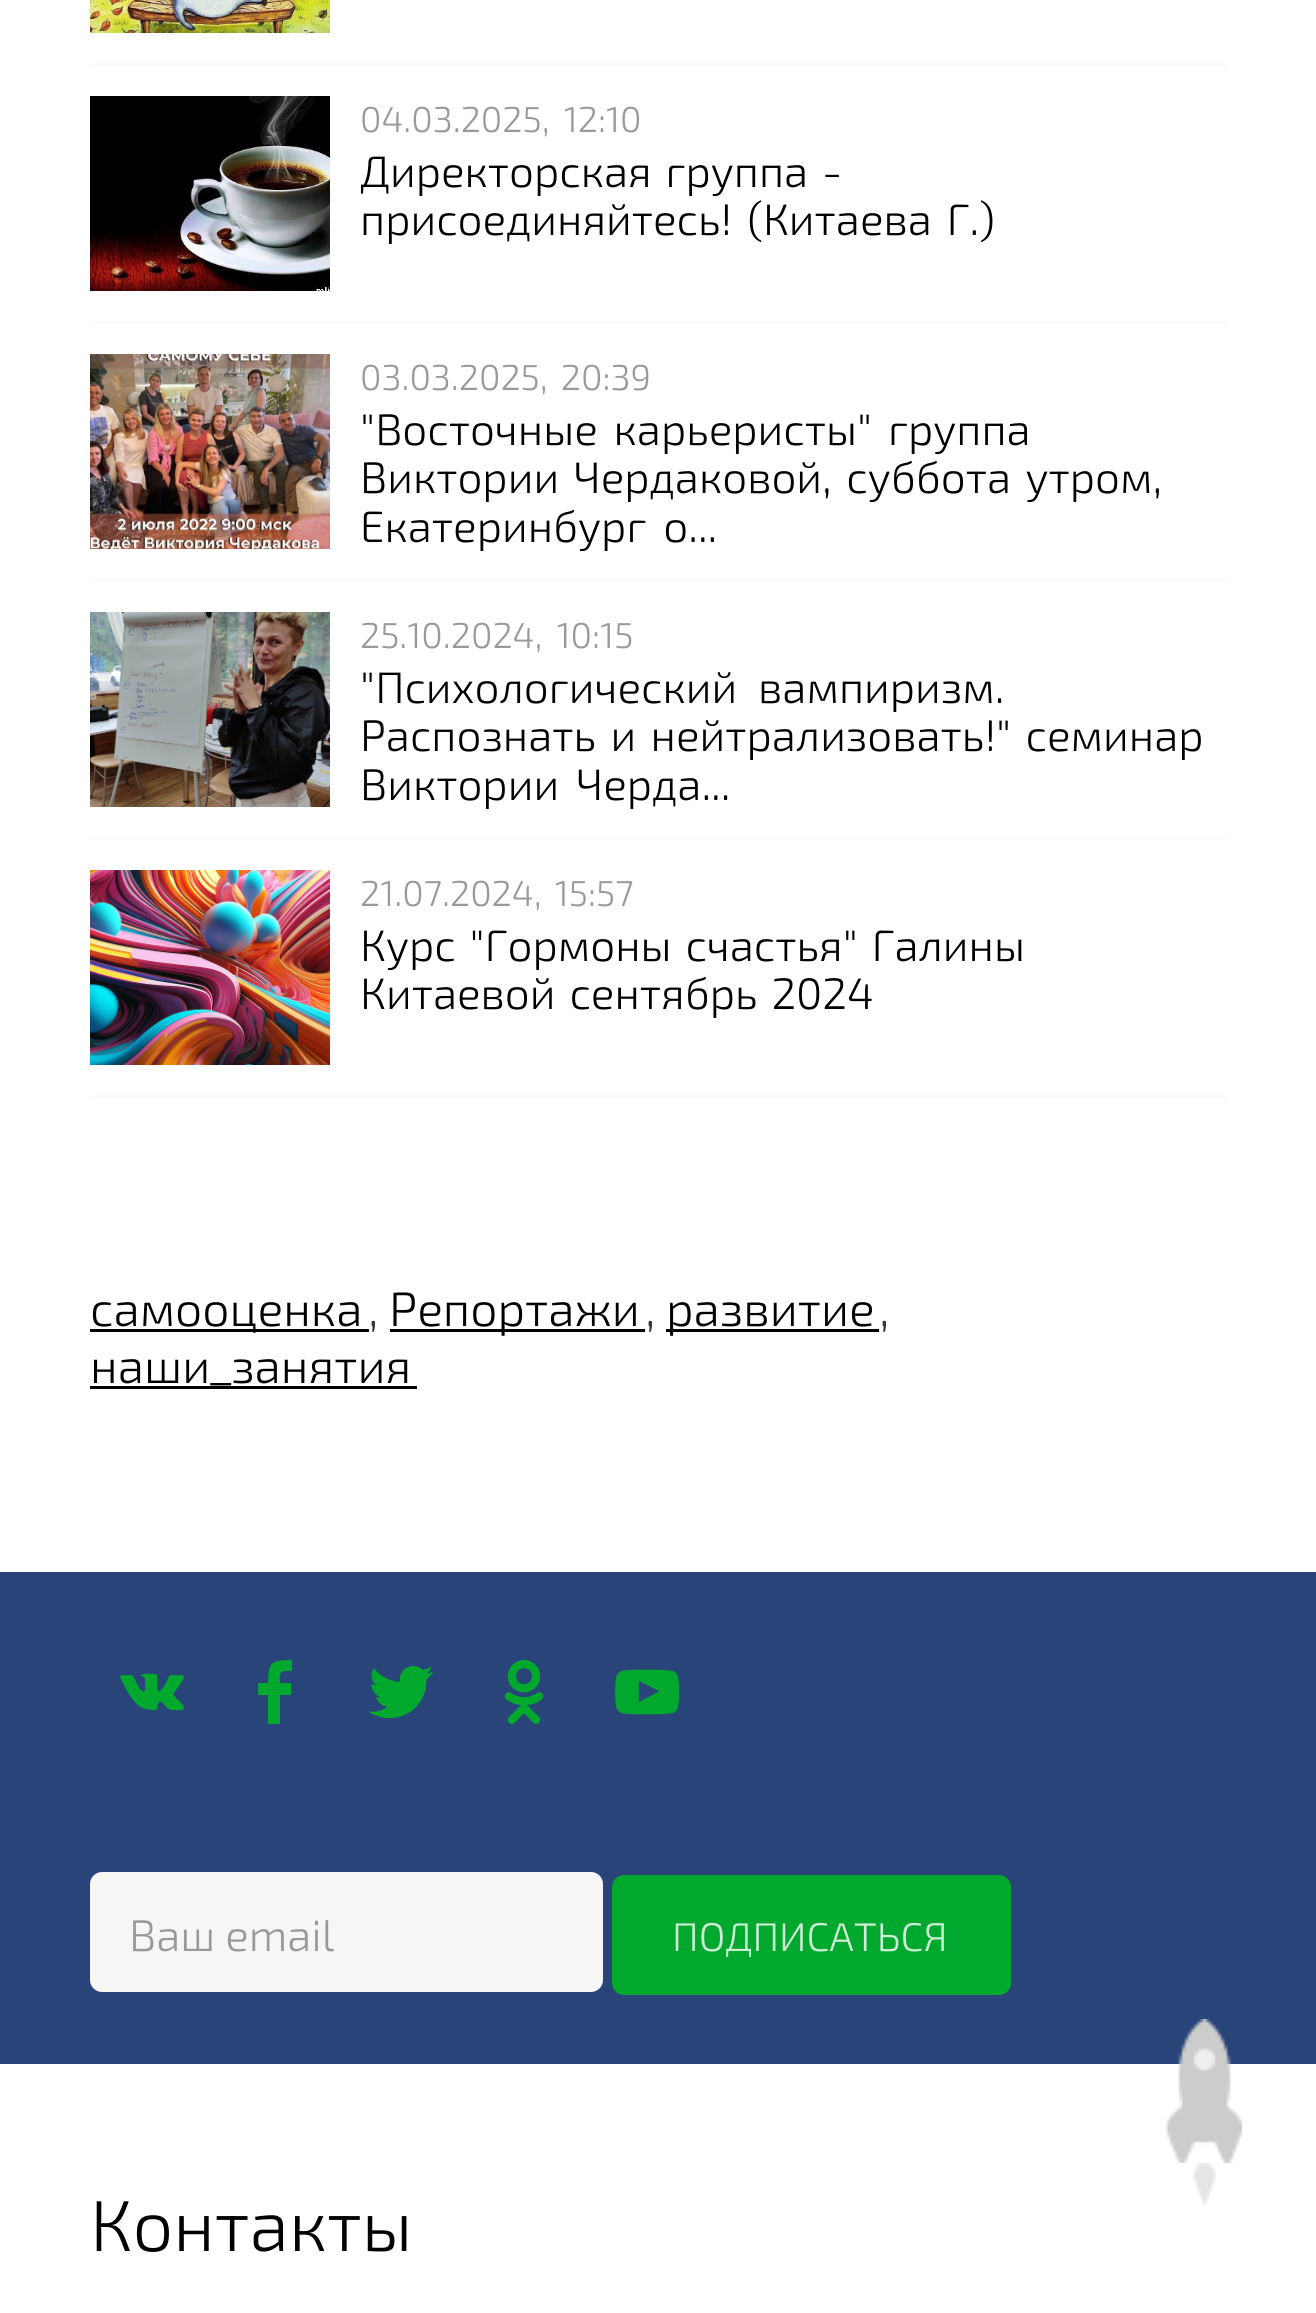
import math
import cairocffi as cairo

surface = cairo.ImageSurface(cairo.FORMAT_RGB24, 1316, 2313)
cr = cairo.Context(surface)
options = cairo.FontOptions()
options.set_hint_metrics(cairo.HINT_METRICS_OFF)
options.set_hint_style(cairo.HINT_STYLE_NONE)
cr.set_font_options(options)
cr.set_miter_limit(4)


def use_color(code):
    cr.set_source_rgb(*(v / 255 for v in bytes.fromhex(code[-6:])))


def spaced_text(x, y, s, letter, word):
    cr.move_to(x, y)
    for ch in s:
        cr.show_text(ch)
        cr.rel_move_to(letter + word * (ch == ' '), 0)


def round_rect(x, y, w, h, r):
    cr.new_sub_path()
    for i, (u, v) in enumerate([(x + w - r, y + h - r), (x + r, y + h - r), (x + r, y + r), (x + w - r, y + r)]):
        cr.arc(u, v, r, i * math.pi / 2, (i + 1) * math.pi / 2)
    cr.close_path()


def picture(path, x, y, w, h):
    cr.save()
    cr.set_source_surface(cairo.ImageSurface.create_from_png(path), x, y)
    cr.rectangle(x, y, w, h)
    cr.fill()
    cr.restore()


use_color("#ffffff")
cr.paint()
use_color("#fafafa")
cr.rectangle(90, 63, 1137, 3)
cr.fill()
picture("img1.png", 90, 0, 240, 33)
cr.rectangle(90, 321, 1137, 3)
cr.fill()
picture("img2.png", 90, 96, 240, 195)
cr.select_font_face("Exo 2 Light")
cr.set_font_size(36)
use_color("#999999")
spaced_text(360, 132, "04.03.2025, 12:10", 0, 6)
cr.set_font_size(44)
use_color("#000000")
spaced_text(360, 187, "Директорская группа -", 0, 4)
spaced_text(360, 235, "присоединяйтесь! (Китаева Г.)", 0, 5)
use_color("#fafafa")
cr.rectangle(90, 579, 1137, 3)
cr.fill()
picture("img3.png", 90, 354, 240, 195)
cr.set_font_size(36)
use_color("#999999")
spaced_text(360, 390, "03.03.2025, 20:39", 0, 5)
cr.set_font_size(44)
use_color("#000000")
spaced_text(360, 445, "\"Восточные карьеристы\" группа", 0, 6)
spaced_text(360, 493, "Виктории Чердаковой, суббота утром,", 0, 4.5)
spaced_text(360, 542, "Екатеринбург о...", 0, 7)
use_color("#fafafa")
cr.rectangle(90, 837, 1137, 3)
cr.fill()
picture("img4.png", 90, 612, 240, 195)
cr.set_font_size(36)
use_color("#999999")
spaced_text(360, 648, "25.10.2024, 10:15", 0, 6)
cr.set_font_size(44)
use_color("#000000")
spaced_text(360, 703, "\"Психологический вампиризм.", 0, 11)
spaced_text(360, 751, "Распознать и нейтрализовать!\" семинар", 0, 4.5)
spaced_text(360, 800, "Виктории Черда...", 0, 7)
use_color("#fafafa")
cr.rectangle(90, 1095, 1137, 3)
cr.fill()
picture("img5.png", 90, 870, 240, 195)
cr.set_font_size(36)
use_color("#999999")
spaced_text(360, 906, "21.07.2024, 15:57", 0, 5)
cr.set_font_size(44)
use_color("#000000")
spaced_text(360, 961, "Курс \"Гормоны счастья\" Галины", 0, 4)
spaced_text(360, 1009, "Китаевой сентябрь 2024", 0, 4)
cr.rectangle(90, 1329, 279, 3)
cr.fill()
cr.set_font_size(48)
cr.move_to(90, 1326)
cr.show_text("самооценка")
use_color("#333333")
cr.move_to(368, 1326)
cr.show_text(",")
use_color("#000000")
cr.rectangle(390, 1329, 255, 3)
cr.fill()
cr.move_to(389, 1326)
cr.show_text("Репортажи")
use_color("#333333")
cr.move_to(645, 1326)
cr.show_text(",")
use_color("#000000")
cr.rectangle(666, 1329, 213, 3)
cr.fill()
cr.move_to(666, 1326)
cr.show_text("развитие")
use_color("#333333")
cr.move_to(879, 1326)
cr.show_text(",")
use_color("#000000")
cr.move_to(90, 1383)
cr.show_text("наши_занятия")
cr.rectangle(90, 1386, 327, 3)
cr.fill()
use_color("#294479")
cr.rectangle(0, 1572, 1316, 492)
cr.fill()
picture("img6.png", 120, 1673, 64, 38)
use_color("#00a82d")
cr.new_path()
cr.move_to(292, 1671)
cr.curve_to(279, 1671, 280, 1671, 280, 1683)
cr.line_to(291, 1683)
cr.line_to(291, 1695)
cr.line_to(280, 1695)
cr.line_to(280, 1724)
cr.line_to(268, 1724)
cr.line_to(268, 1695)
cr.line_to(258, 1695)
cr.line_to(258, 1683)
cr.line_to(268, 1683)
cr.curve_to(268, 1662, 271, 1660, 292, 1660)
cr.close_path()
cr.fill()
picture("img7.png", 369, 1665, 64, 54)
picture("img8.png", 504, 1660, 40, 64)
picture("img9.png", 615, 1669, 65, 46)
use_color("#f6f6f6")
round_rect(91.5, 1873.5, 510, 117, 10.5)
cr.fill_preserve()
cr.set_line_width(3)
cr.stroke()
cr.set_font_size(44)
use_color("#999999")
cr.move_to(129, 1951)
cr.show_text("Ваш email")
use_color("#00a82d")
round_rect(612, 1875, 399, 120, 12)
cr.fill()
cr.set_font_size(40)
use_color("#cceed5")
cr.move_to(672, 1951)
cr.show_text("ПОДПИСАТЬСЯ")
cr.set_font_size(72)
use_color("#000000")
cr.move_to(90, 2251)
cr.show_text("Контакты")
picture("img10.png", 1166, 2019, 76, 144)
picture("img11.png", 1193, 2163, 23, 42)
surface.write_to_png("result.png")
